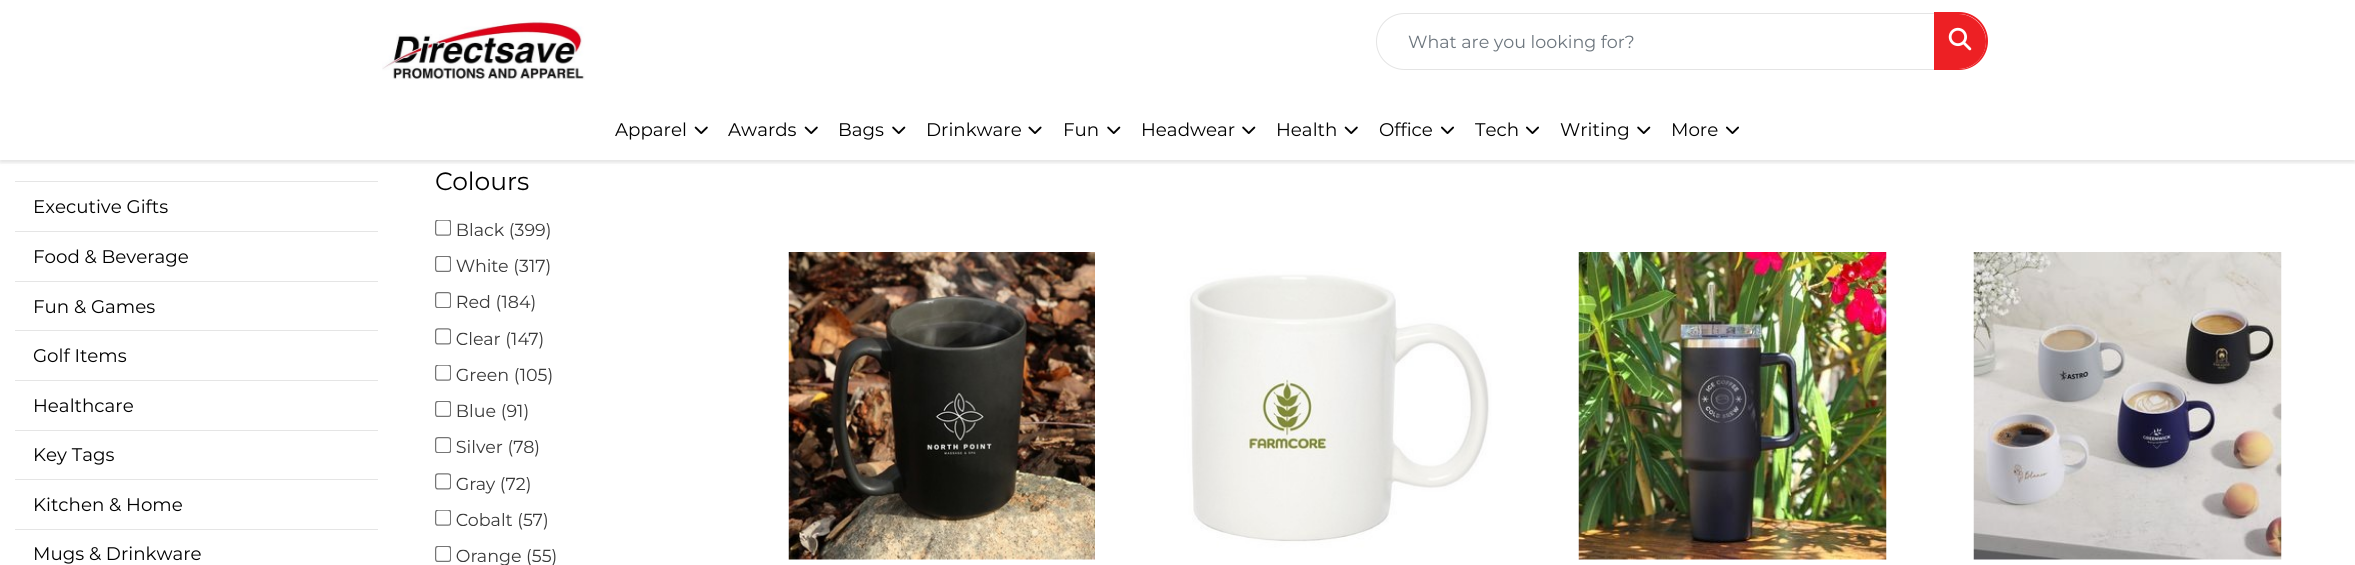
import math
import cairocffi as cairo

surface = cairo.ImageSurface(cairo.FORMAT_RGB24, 2355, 565)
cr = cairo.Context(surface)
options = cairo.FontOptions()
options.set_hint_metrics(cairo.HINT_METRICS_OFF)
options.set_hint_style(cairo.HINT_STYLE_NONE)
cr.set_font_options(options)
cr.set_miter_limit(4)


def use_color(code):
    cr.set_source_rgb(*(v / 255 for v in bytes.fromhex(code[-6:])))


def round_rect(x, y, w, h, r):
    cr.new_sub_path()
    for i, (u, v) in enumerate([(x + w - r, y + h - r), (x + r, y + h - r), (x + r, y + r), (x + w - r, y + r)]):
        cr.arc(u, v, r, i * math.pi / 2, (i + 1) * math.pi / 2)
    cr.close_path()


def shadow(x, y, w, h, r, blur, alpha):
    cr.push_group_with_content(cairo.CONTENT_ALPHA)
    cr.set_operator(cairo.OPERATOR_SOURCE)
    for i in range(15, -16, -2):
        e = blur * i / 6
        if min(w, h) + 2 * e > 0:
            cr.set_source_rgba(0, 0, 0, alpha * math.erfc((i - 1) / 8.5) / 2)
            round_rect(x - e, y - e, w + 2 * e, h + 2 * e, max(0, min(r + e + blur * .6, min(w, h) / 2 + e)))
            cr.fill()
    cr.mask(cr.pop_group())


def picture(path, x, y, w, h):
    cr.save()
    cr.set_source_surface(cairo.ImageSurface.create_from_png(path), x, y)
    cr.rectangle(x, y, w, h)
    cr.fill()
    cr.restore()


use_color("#ffffff")
cr.paint()
picture("img7.png", 435, 160, 1847, 405)
use_color("#000000")
shadow(0, 0, 2355, 160, 0, 3, 0.1)
use_color("#ffffff")
cr.rectangle(0, 0, 2355, 160)
cr.fill()
picture("img1.png", 382, 20, 203, 60)
cr.new_path()
cr.move_to(1404.5, 13.5)
cr.line_to(1934.5, 13.5)
cr.line_to(1934.5, 69.5)
cr.line_to(1404.5, 69.5)
cr.curve_to(1389, 69.5, 1376.5, 57, 1376.5, 41.5)
cr.curve_to(1376.5, 26, 1389, 13.5, 1404.5, 13.5)
cr.close_path()
use_color("#e4e4e4")
cr.set_line_width(1)
cr.stroke()
cr.select_font_face("Montserrat Thin")
cr.set_font_size(17.5)
use_color("#6c757d")
cr.move_to(1408, 48)
cr.show_text("What are you looking for?")
use_color("#ed2024")
cr.new_path()
cr.move_to(1934, 14)
cr.line_to(1958.5, 14)
cr.curve_to(1973.5, 14, 1986, 26.5, 1986, 41.5)
cr.curve_to(1986, 56.5, 1973.5, 69, 1958.5, 69)
cr.line_to(1934, 69)
cr.close_path()
cr.fill()
cr.set_fill_rule(cairo.FILL_RULE_EVEN_ODD)
cr.new_path()
cr.move_to(1934, 12)
cr.line_to(1959, 12)
cr.curve_to(1975, 12, 1988, 25, 1988, 41)
cr.curve_to(1988, 57, 1975, 70, 1959, 70)
cr.line_to(1934, 70)
cr.close_path()
cr.move_to(1934, 14)
cr.line_to(1959, 14)
cr.curve_to(1974, 14, 1986, 26, 1986, 41)
cr.curve_to(1986, 56, 1974, 69, 1959, 69)
cr.line_to(1934, 69)
cr.close_path()
cr.fill()
picture("img2.png", 1948, 27, 24, 24)
cr.save()
cr.set_fill_rule(cairo.FILL_RULE_WINDING)
cr.rectangle(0, 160, 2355, 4)
cr.clip()
use_color("#000000")
shadow(0, 103, 2355, 60, 0, 2.5, 0.07)
cr.restore()
cr.set_font_size(18.25)
use_color("#000000")
cr.move_to(615, 136)
cr.show_text("Apparel")
picture("img3.png", 694, 126, 14, 8)
cr.move_to(728, 136)
cr.show_text("Awards")
picture("img3.png", 804, 126, 14, 8)
cr.move_to(838, 136)
cr.show_text("Bags")
picture("img4.png", 892, 126, 14, 8)
cr.move_to(926, 136)
cr.show_text("Drinkware")
picture("img5.png", 1028, 126, 14, 8)
cr.move_to(1063, 136)
cr.show_text("Fun")
picture("img4.png", 1107, 126, 14, 8)
cr.move_to(1141, 136)
cr.show_text("Headwear")
picture("img4.png", 1242, 126, 14, 8)
cr.move_to(1276, 136)
cr.show_text("Health")
picture("img3.png", 1344, 126, 14, 8)
cr.move_to(1379, 136)
cr.show_text("Office")
picture("img6.png", 1441, 126, 13, 8)
cr.move_to(1475, 136)
cr.show_text("Tech")
picture("img6.png", 1526, 126, 13, 8)
cr.move_to(1560, 136)
cr.show_text("Writing")
picture("img4.png", 1637, 126, 14, 8)
cr.move_to(1671, 136)
cr.show_text("More")
picture("img6.png", 1726, 126, 13, 8)
use_color("#e5e5e5")
cr.rectangle(15, 181, 363, 1)
cr.fill()
use_color("#000000")
cr.move_to(33, 213)
cr.show_text("Executive Gifts")
use_color("#e5e5e5")
cr.rectangle(15, 231, 363, 1)
cr.fill()
use_color("#000000")
cr.move_to(33, 263)
cr.show_text("Food & Beverage")
use_color("#e5e5e5")
cr.rectangle(15, 281, 363, 1)
cr.fill()
use_color("#000000")
cr.move_to(33, 313)
cr.show_text("Fun & Games")
use_color("#e5e5e5")
cr.rectangle(15, 330, 363, 1)
cr.fill()
use_color("#000000")
cr.move_to(33, 362)
cr.show_text("Golf Items")
use_color("#e5e5e5")
cr.rectangle(15, 380, 363, 1)
cr.fill()
use_color("#000000")
cr.move_to(33, 412)
cr.show_text("Healthcare")
use_color("#e5e5e5")
cr.rectangle(15, 430, 363, 1)
cr.fill()
use_color("#000000")
cr.move_to(33, 461)
cr.show_text("Key Tags")
use_color("#e5e5e5")
cr.rectangle(15, 479, 363, 1)
cr.fill()
use_color("#000000")
cr.move_to(33, 511)
cr.show_text("Kitchen & Home")
use_color("#e5e5e5")
cr.rectangle(15, 529, 363, 1)
cr.fill()
use_color("#000000")
cr.move_to(33, 560)
cr.show_text("Mugs & Drinkware")
surface.write_to_png("result.png")
